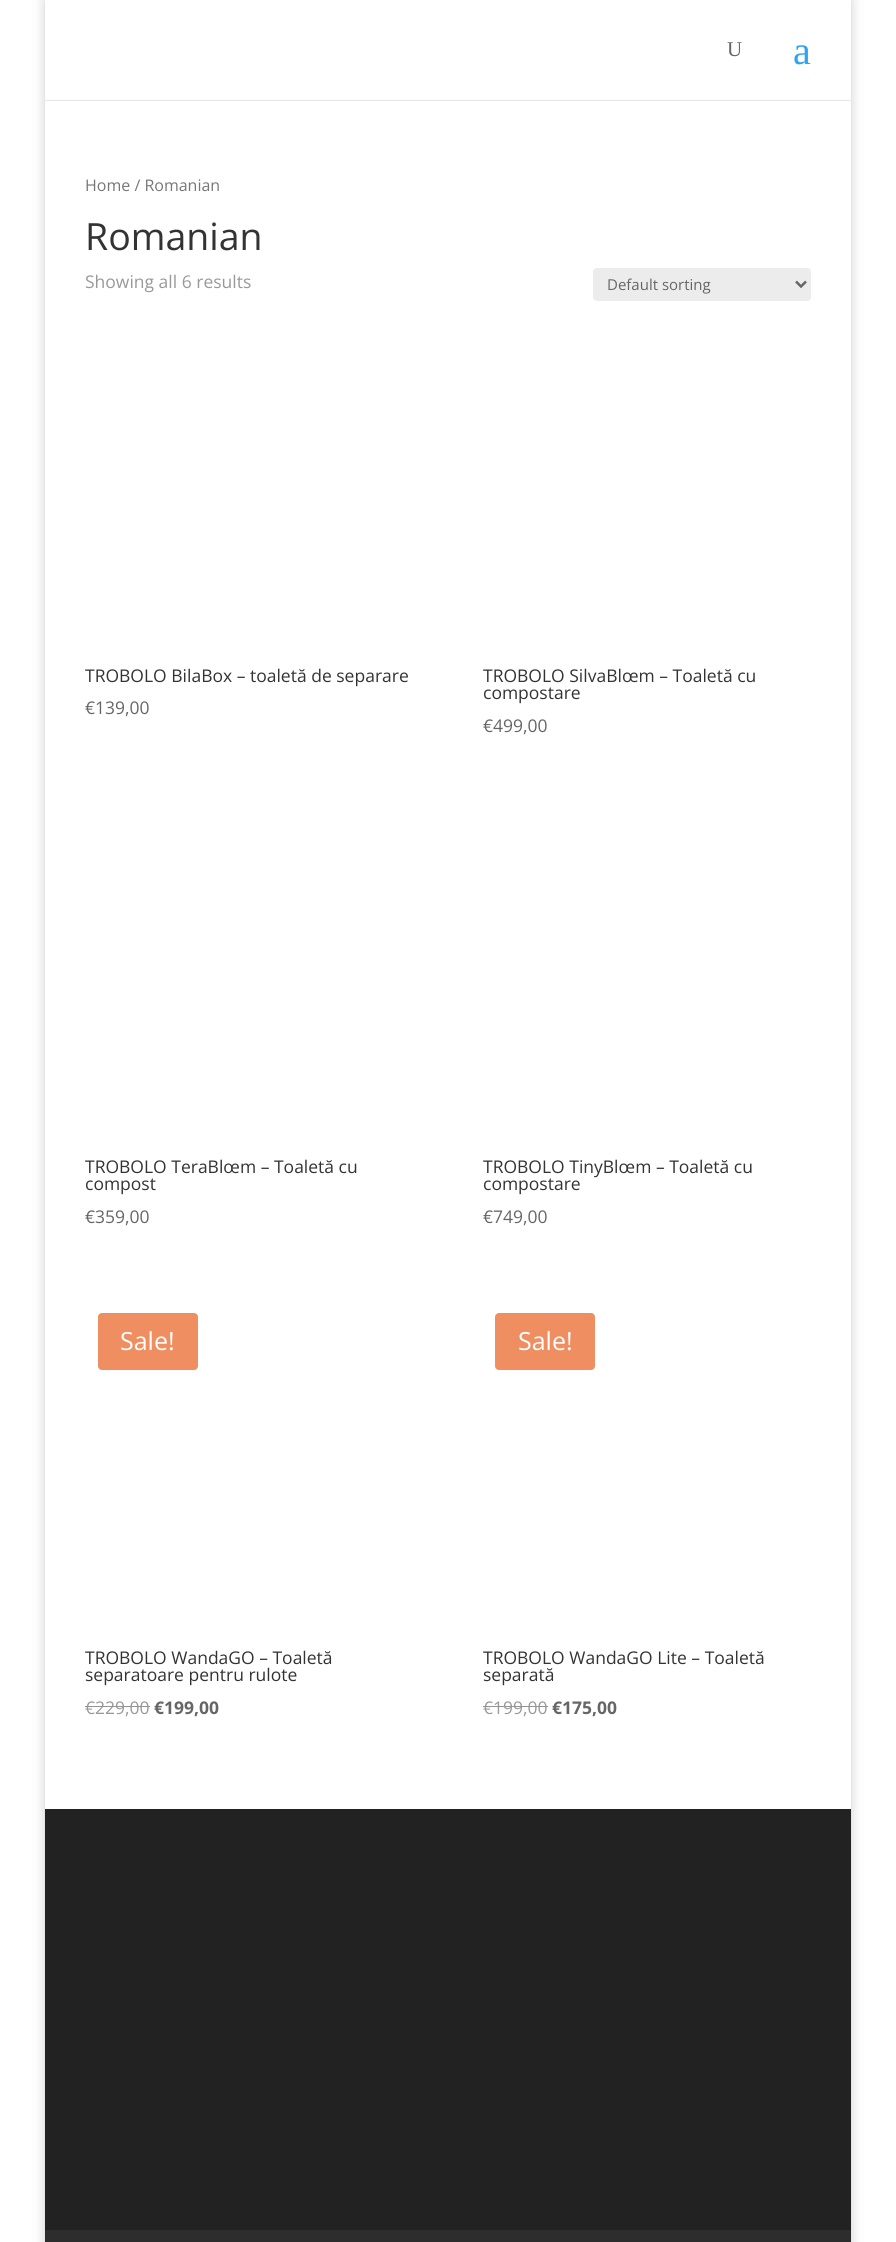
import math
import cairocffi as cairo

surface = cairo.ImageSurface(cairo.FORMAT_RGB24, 896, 2242)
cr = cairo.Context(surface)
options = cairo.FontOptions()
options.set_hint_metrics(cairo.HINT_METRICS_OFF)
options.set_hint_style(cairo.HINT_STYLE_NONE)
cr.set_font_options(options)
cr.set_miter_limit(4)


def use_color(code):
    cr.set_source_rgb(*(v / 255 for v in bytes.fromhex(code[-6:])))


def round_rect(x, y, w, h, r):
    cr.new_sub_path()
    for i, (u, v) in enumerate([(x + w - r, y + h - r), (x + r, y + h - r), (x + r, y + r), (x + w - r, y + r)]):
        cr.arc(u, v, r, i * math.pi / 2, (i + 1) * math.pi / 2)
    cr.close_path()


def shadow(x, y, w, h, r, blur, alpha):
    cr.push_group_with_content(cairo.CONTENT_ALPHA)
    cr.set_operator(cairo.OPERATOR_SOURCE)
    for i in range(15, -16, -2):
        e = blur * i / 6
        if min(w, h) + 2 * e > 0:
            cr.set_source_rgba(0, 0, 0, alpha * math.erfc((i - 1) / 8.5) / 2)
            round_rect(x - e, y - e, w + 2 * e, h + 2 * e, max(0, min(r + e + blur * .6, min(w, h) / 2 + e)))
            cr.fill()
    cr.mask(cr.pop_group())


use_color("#ffffff")
cr.paint()
cr.save()
cr.set_fill_rule(cairo.FILL_RULE_EVEN_ODD)
cr.new_path()
cr.move_to(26, 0)
cr.line_to(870, 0)
cr.line_to(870, 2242)
cr.line_to(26, 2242)
cr.close_path()
cr.move_to(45, 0)
cr.line_to(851, 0)
cr.line_to(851, 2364)
cr.line_to(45, 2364)
cr.close_path()
cr.clip()
use_color("#000000")
shadow(45, 0, 806, 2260, 0, 6, 0.2)
cr.restore()
use_color("#e6e6e6")
cr.rectangle(45, 100, 806, 1)
cr.fill()
cr.select_font_face("Liberation Serif")
cr.set_font_size(21)
use_color("#666666")
cr.move_to(727, 56)
cr.show_text("U")
cr.set_font_size(40)
use_color("#2ea3f2")
cr.move_to(793, 64)
cr.show_text("a")
cr.select_font_face("Open Sans")
cr.set_font_size(16)
use_color("#767676")
cr.move_to(85, 191)
cr.show_text("Home / Romanian")
cr.set_font_size(37.5)
use_color("#333333")
cr.move_to(85, 250)
cr.show_text("Romanian")
cr.set_font_size(17.5)
use_color("#999999")
cr.move_to(85, 288)
cr.show_text("Showing all 6 results")
use_color("#ececec")
round_rect(593, 268, 218, 33, 4)
cr.fill()
cr.new_path()
cr.move_to(796, 281.5)
cr.line_to(801, 286.5)
cr.line_to(806, 281.5)
use_color("#666666")
cr.set_line_width(2.5)
cr.stroke()
cr.set_font_size(15)
cr.move_to(607, 290)
cr.show_text("Default sorting")
cr.set_font_size(17.5)
use_color("#333333")
cr.move_to(85, 682)
cr.show_text("TROBOLO BilaBox – toaletă de separare")
use_color("#666666")
cr.move_to(85, 714)
cr.show_text("€139,00")
use_color("#333333")
cr.move_to(483, 682)
cr.show_text("TROBOLO SilvaBlœm – Toaletă cu")
cr.move_to(483, 699)
cr.show_text("compostare")
use_color("#666666")
cr.move_to(483, 732)
cr.show_text("€499,00")
use_color("#333333")
cr.move_to(85, 1173)
cr.show_text("TROBOLO TeraBlœm – Toaletă cu")
cr.move_to(85, 1190)
cr.show_text("compost")
use_color("#666666")
cr.move_to(85, 1223)
cr.show_text("€359,00")
use_color("#333333")
cr.move_to(483, 1173)
cr.show_text("TROBOLO TinyBlœm – Toaletă cu")
cr.move_to(483, 1190)
cr.show_text("compostare")
use_color("#666666")
cr.move_to(483, 1223)
cr.show_text("€749,00")
use_color("#ef8f61")
round_rect(98, 1313, 100, 57, 4)
cr.fill()
cr.set_font_size(25)
use_color("#ffffff")
cr.move_to(120, 1350)
cr.show_text("Sale!")
cr.set_font_size(17.5)
use_color("#333333")
cr.move_to(85, 1664)
cr.show_text("TROBOLO WandaGO – Toaletă")
cr.move_to(85, 1681)
cr.show_text("separatoare pentru rulote")
use_color("#999999")
cr.move_to(85, 1714)
cr.show_text("€229,00")
use_color("#949494")
cr.rectangle(85, 1706, 65, 1)
cr.fill()
cr.select_font_face("Open Sans", cairo.FONT_SLANT_NORMAL, cairo.FONT_WEIGHT_BOLD)
use_color("#666666")
cr.move_to(154, 1714)
cr.show_text("€199,00")
use_color("#ef8f61")
round_rect(495, 1313, 100, 57, 4)
cr.fill()
cr.select_font_face("Open Sans")
cr.set_font_size(25)
use_color("#ffffff")
cr.move_to(518, 1350)
cr.show_text("Sale!")
cr.set_font_size(17.5)
use_color("#333333")
cr.move_to(483, 1664)
cr.show_text("TROBOLO WandaGO Lite – Toaletă")
cr.move_to(483, 1681)
cr.show_text("separată")
use_color("#999999")
cr.move_to(483, 1714)
cr.show_text("€199,00")
use_color("#949494")
cr.rectangle(483, 1706, 65, 1)
cr.fill()
cr.select_font_face("Open Sans", cairo.FONT_SLANT_NORMAL, cairo.FONT_WEIGHT_BOLD)
use_color("#666666")
cr.move_to(552, 1714)
cr.show_text("€175,00")
use_color("#222222")
cr.rectangle(45, 1809, 806, 421)
cr.fill()
use_color("#2d2d2d")
cr.rectangle(45, 2230, 806, 12)
cr.fill()
surface.write_to_png("result.png")
